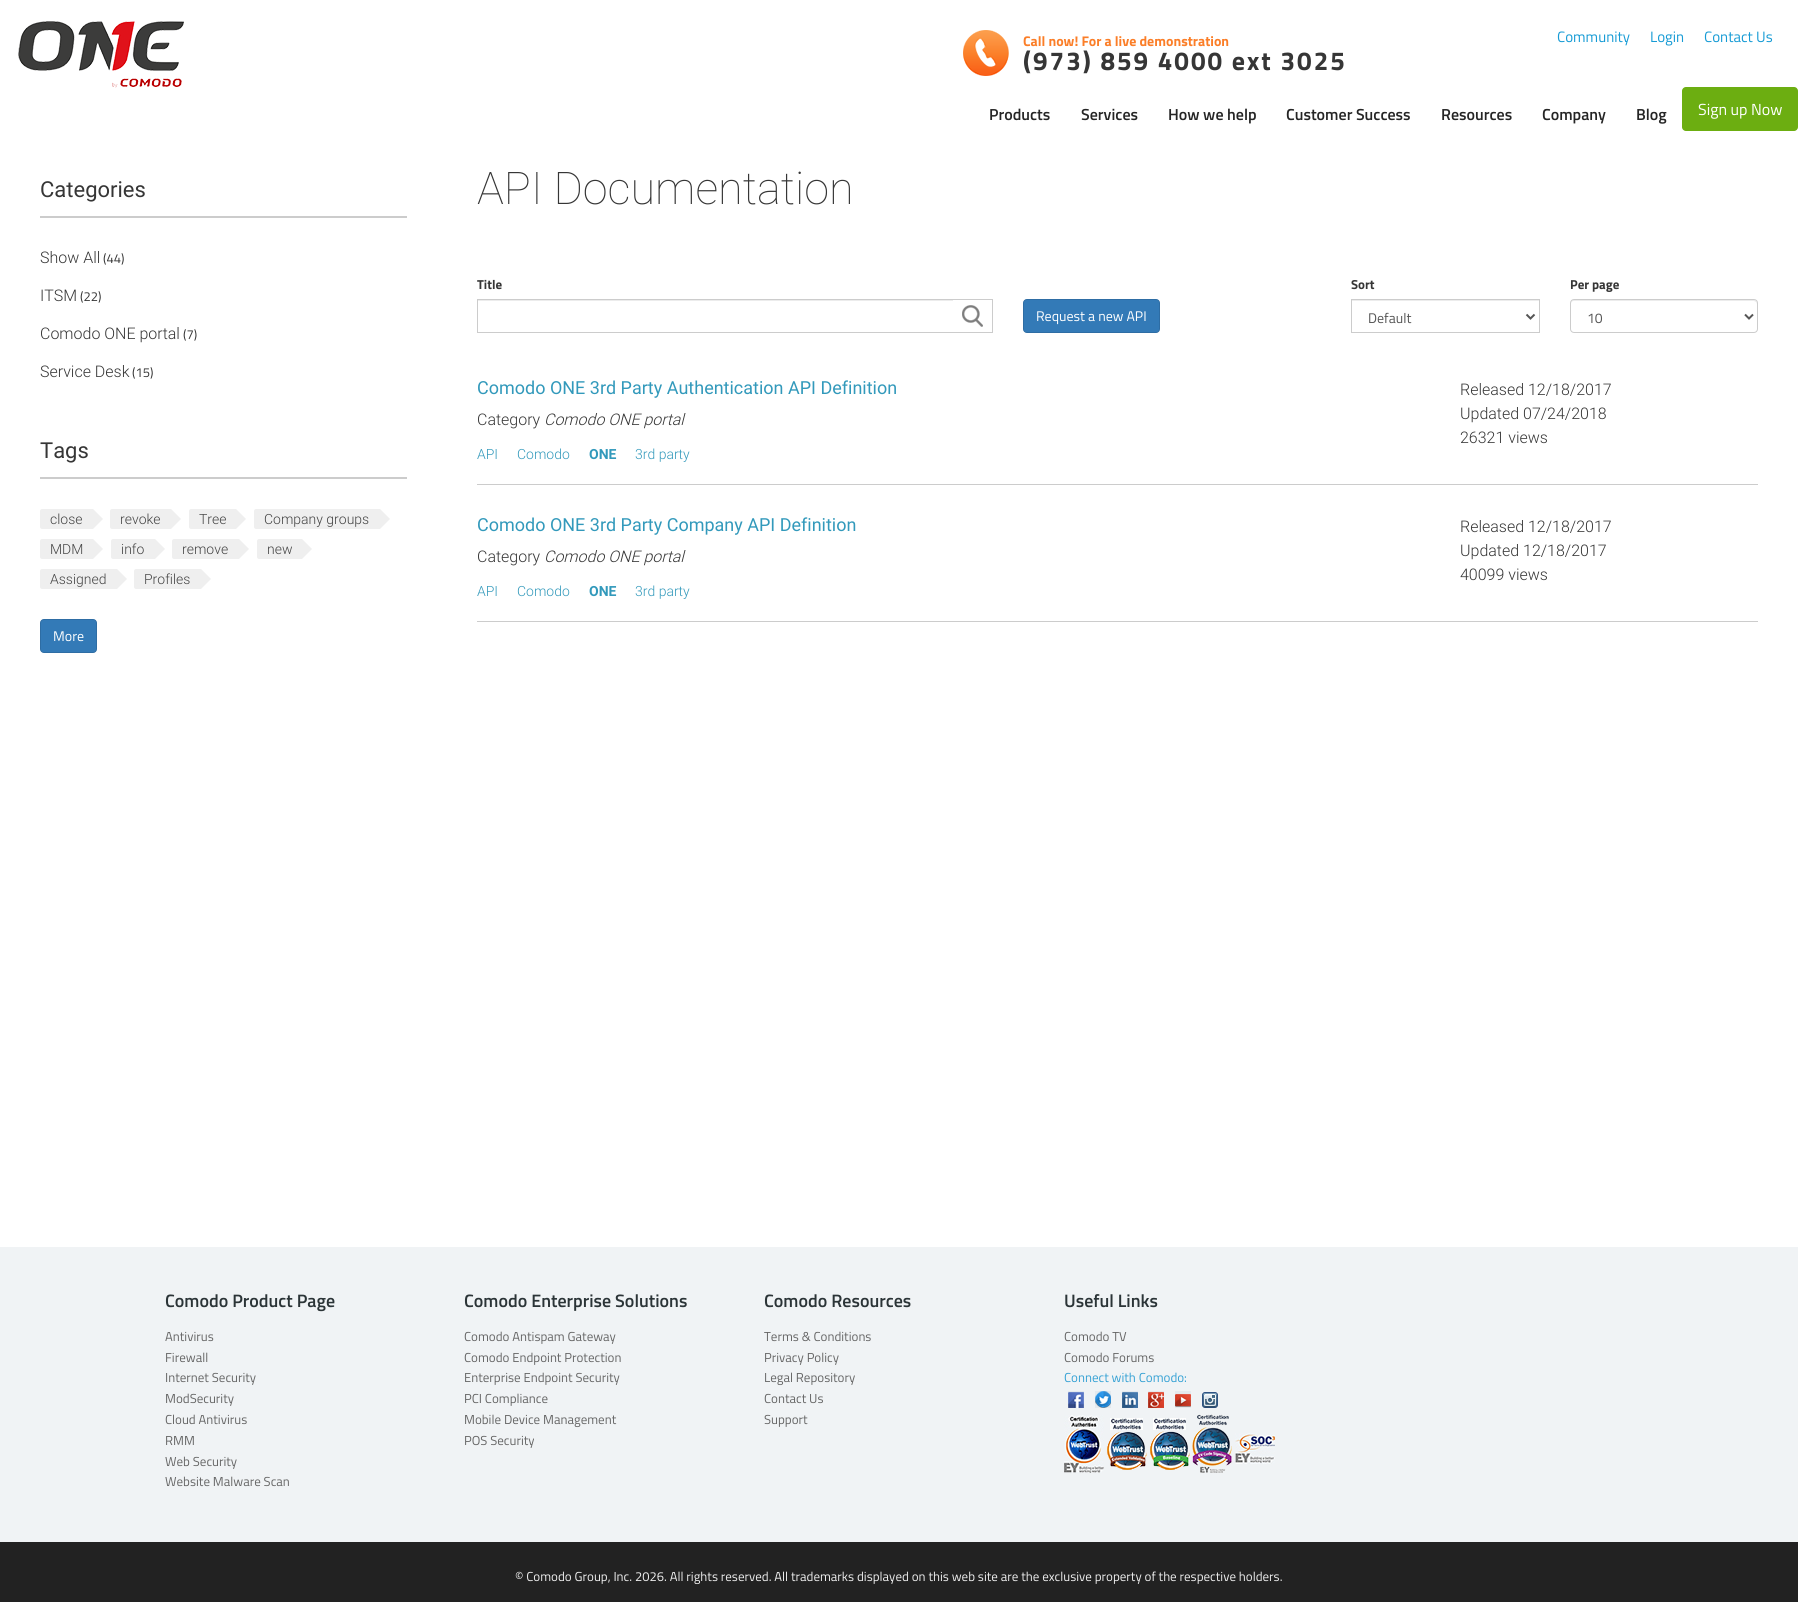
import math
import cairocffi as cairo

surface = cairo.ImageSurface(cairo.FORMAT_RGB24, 1798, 1602)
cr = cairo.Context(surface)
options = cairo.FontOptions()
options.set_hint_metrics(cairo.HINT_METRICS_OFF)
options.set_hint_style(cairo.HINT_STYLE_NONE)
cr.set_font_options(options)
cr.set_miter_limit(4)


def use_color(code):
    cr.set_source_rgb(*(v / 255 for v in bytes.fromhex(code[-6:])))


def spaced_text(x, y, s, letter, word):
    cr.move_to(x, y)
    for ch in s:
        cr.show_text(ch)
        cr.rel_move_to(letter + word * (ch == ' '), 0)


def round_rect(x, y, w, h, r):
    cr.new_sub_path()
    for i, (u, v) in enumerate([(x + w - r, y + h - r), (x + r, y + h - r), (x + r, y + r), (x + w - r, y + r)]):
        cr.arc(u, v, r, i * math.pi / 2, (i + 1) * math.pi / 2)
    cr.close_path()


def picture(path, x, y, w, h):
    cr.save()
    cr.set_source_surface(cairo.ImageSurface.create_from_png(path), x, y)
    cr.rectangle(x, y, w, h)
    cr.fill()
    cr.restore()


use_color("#ffffff")
cr.paint()
picture("img1.png", 18, 21, 166, 67)
picture("img2.png", 963, 30, 46, 46)
cr.select_font_face("Titillium Web", cairo.FONT_SLANT_NORMAL, cairo.FONT_WEIGHT_BOLD)
cr.set_font_size(14)
use_color("#fb7e28")
cr.move_to(1023, 46)
cr.show_text("Call now! For a live demonstration")
cr.set_font_size(26)
use_color("#363636")
spaced_text(1023, 70, "(973) 859 4000 ext 3025", 2, 0)
cr.select_font_face("Titillium Web")
cr.set_font_size(15)
use_color("#169bd5")
cr.move_to(1557, 42)
cr.show_text("Community")
cr.move_to(1650, 42)
cr.show_text("Login")
cr.move_to(1704, 42)
cr.show_text("Contact Us")
cr.select_font_face("Titillium Web SemiBold")
cr.set_font_size(16)
use_color("#252525")
cr.move_to(989, 120)
cr.show_text("Products")
cr.move_to(1081, 120)
cr.show_text("Services")
cr.move_to(1168, 120)
cr.show_text("How we help")
cr.move_to(1286, 120)
cr.show_text("Customer Success")
cr.move_to(1441, 120)
cr.show_text("Resources")
cr.move_to(1542, 120)
cr.show_text("Company")
cr.move_to(1636, 120)
cr.show_text("Blog")
use_color("#6cae11")
round_rect(1682, 87, 116, 44, 4)
cr.fill()
cr.select_font_face("Titillium Web")
use_color("#ffffff")
cr.move_to(1698, 115)
cr.show_text("Sign up Now")
use_color("#cccccc")
cr.rectangle(40, 216, 367, 2)
cr.fill()
cr.select_font_face("Roboto")
cr.set_font_size(22)
use_color("#363636")
cr.move_to(40, 197)
cr.show_text("Categories")
cr.select_font_face("Roboto Light")
cr.set_font_size(16)
cr.move_to(40, 263)
cr.show_text("Show All")
cr.select_font_face("Titillium Web")
cr.set_font_size(13)
cr.move_to(103, 263)
cr.show_text("(44)")
cr.select_font_face("Roboto Light")
cr.set_font_size(16)
cr.move_to(40, 301)
cr.show_text("ITSM")
cr.select_font_face("Titillium Web")
cr.set_font_size(13)
cr.move_to(80, 301)
cr.show_text("(22)")
cr.select_font_face("Roboto Light")
cr.set_font_size(16)
cr.move_to(40, 339)
cr.show_text("Comodo ONE portal")
cr.select_font_face("Titillium Web")
cr.set_font_size(13)
cr.move_to(183, 339)
cr.show_text("(7)")
cr.select_font_face("Roboto Light")
cr.set_font_size(16)
cr.move_to(40, 377)
cr.show_text("Service Desk")
cr.select_font_face("Titillium Web")
cr.set_font_size(13)
cr.move_to(132, 377)
cr.show_text("(15)")
use_color("#cccccc")
cr.rectangle(40, 477, 367, 2)
cr.fill()
cr.select_font_face("Roboto")
cr.set_font_size(22)
use_color("#363636")
cr.move_to(40, 458)
cr.show_text("Tags")
use_color("#efefef")
cr.new_path()
cr.move_to(42, 509)
cr.line_to(93, 509)
cr.line_to(93, 529)
cr.line_to(42, 529)
cr.curve_to(41, 529, 40, 528, 40, 527)
cr.line_to(40, 511)
cr.curve_to(40, 510, 41, 509, 42, 509)
cr.close_path()
cr.fill()
cr.select_font_face("Roboto Light")
cr.set_font_size(14)
use_color("#424242")
cr.move_to(50, 524)
cr.show_text("close")
use_color("#efefef")
cr.new_path()
cr.move_to(93, 529)
cr.line_to(93, 509)
cr.line_to(103, 519)
cr.close_path()
cr.fill()
cr.new_path()
cr.move_to(112, 509)
cr.line_to(171, 509)
cr.line_to(171, 529)
cr.line_to(112, 529)
cr.curve_to(111, 529, 110, 528, 110, 527)
cr.line_to(110, 511)
cr.curve_to(110, 510, 111, 509, 112, 509)
cr.close_path()
cr.fill()
use_color("#424242")
cr.move_to(120, 524)
cr.show_text("revoke")
use_color("#efefef")
cr.new_path()
cr.move_to(171, 529)
cr.line_to(171, 509)
cr.line_to(181, 519)
cr.close_path()
cr.fill()
cr.new_path()
cr.move_to(191, 509)
cr.line_to(236, 509)
cr.line_to(236, 529)
cr.line_to(191, 529)
cr.curve_to(190, 529, 189, 528, 189, 527)
cr.line_to(189, 511)
cr.curve_to(189, 510, 190, 509, 191, 509)
cr.close_path()
cr.fill()
use_color("#424242")
cr.move_to(199, 524)
cr.show_text("Tree")
use_color("#efefef")
cr.new_path()
cr.move_to(236, 529)
cr.line_to(236, 509)
cr.line_to(246, 519)
cr.close_path()
cr.fill()
cr.new_path()
cr.move_to(256, 509)
cr.line_to(380, 509)
cr.line_to(380, 529)
cr.line_to(256, 529)
cr.curve_to(255, 529, 254, 528, 254, 527)
cr.line_to(254, 511)
cr.curve_to(254, 510, 255, 509, 256, 509)
cr.close_path()
cr.fill()
use_color("#424242")
cr.move_to(264, 524)
cr.show_text("Company groups")
use_color("#efefef")
cr.new_path()
cr.move_to(380, 529)
cr.line_to(380, 509)
cr.line_to(390, 519)
cr.close_path()
cr.fill()
cr.new_path()
cr.move_to(42, 539)
cr.line_to(93, 539)
cr.line_to(93, 559)
cr.line_to(42, 559)
cr.curve_to(41, 559, 40, 558, 40, 557)
cr.line_to(40, 541)
cr.curve_to(40, 540, 41, 539, 42, 539)
cr.close_path()
cr.fill()
use_color("#424242")
cr.move_to(50, 554)
cr.show_text("MDM")
use_color("#efefef")
cr.new_path()
cr.move_to(93, 559)
cr.line_to(93, 539)
cr.line_to(103, 549)
cr.close_path()
cr.fill()
cr.new_path()
cr.move_to(113, 539)
cr.line_to(155, 539)
cr.line_to(155, 559)
cr.line_to(113, 559)
cr.curve_to(112, 559, 111, 558, 111, 557)
cr.line_to(111, 541)
cr.curve_to(111, 540, 112, 539, 113, 539)
cr.close_path()
cr.fill()
use_color("#424242")
cr.move_to(121, 554)
cr.show_text("info")
use_color("#efefef")
cr.new_path()
cr.move_to(155, 559)
cr.line_to(155, 539)
cr.line_to(165, 549)
cr.close_path()
cr.fill()
cr.new_path()
cr.move_to(174, 539)
cr.line_to(239, 539)
cr.line_to(239, 559)
cr.line_to(174, 559)
cr.curve_to(173, 559, 172, 558, 172, 557)
cr.line_to(172, 541)
cr.curve_to(172, 540, 173, 539, 174, 539)
cr.close_path()
cr.fill()
use_color("#424242")
cr.move_to(182, 554)
cr.show_text("remove")
use_color("#efefef")
cr.new_path()
cr.move_to(239, 559)
cr.line_to(239, 539)
cr.line_to(249, 549)
cr.close_path()
cr.fill()
cr.new_path()
cr.move_to(259, 539)
cr.line_to(302, 539)
cr.line_to(302, 559)
cr.line_to(259, 559)
cr.curve_to(258, 559, 257, 558, 257, 557)
cr.line_to(257, 541)
cr.curve_to(257, 540, 258, 539, 259, 539)
cr.close_path()
cr.fill()
use_color("#424242")
cr.move_to(267, 554)
cr.show_text("new")
use_color("#efefef")
cr.new_path()
cr.move_to(302, 559)
cr.line_to(302, 539)
cr.line_to(312, 549)
cr.close_path()
cr.fill()
cr.new_path()
cr.move_to(42, 569)
cr.line_to(117, 569)
cr.line_to(117, 589)
cr.line_to(42, 589)
cr.curve_to(41, 589, 40, 588, 40, 587)
cr.line_to(40, 571)
cr.curve_to(40, 570, 41, 569, 42, 569)
cr.close_path()
cr.fill()
use_color("#424242")
cr.move_to(50, 584)
cr.show_text("Assigned")
use_color("#efefef")
cr.new_path()
cr.move_to(117, 589)
cr.line_to(117, 569)
cr.line_to(127, 579)
cr.close_path()
cr.fill()
cr.new_path()
cr.move_to(136, 569)
cr.line_to(201, 569)
cr.line_to(201, 589)
cr.line_to(136, 589)
cr.curve_to(135, 589, 134, 588, 134, 587)
cr.line_to(134, 571)
cr.curve_to(134, 570, 135, 569, 136, 569)
cr.close_path()
cr.fill()
use_color("#424242")
cr.move_to(144, 584)
cr.show_text("Profiles")
use_color("#efefef")
cr.new_path()
cr.move_to(201, 589)
cr.line_to(201, 569)
cr.line_to(211, 579)
cr.close_path()
cr.fill()
use_color("#337ab7")
round_rect(40.5, 619.5, 56, 33, 3.5)
cr.fill_preserve()
use_color("#2e6da4")
cr.set_line_width(1)
cr.stroke()
cr.select_font_face("Titillium Web")
use_color("#ffffff")
cr.move_to(53, 641)
cr.show_text("More")
cr.select_font_face("Roboto Thin")
cr.set_font_size(45)
use_color("#363636")
cr.move_to(477, 204)
cr.show_text("API Documentation")
cr.select_font_face("Titillium Web", cairo.FONT_SLANT_NORMAL, cairo.FONT_WEIGHT_BOLD)
cr.set_font_size(13)
cr.move_to(477, 289)
cr.show_text("Title")
picture("img3.png", 962, 305, 21, 22)
use_color("#cccccc")
cr.rectangle(477, 299, 516, 1)
cr.fill()
cr.rectangle(992, 299, 1, 34)
cr.fill()
cr.rectangle(477, 332, 516, 1)
cr.fill()
use_color("#ececec")
cr.rectangle(478, 300, 475, 1)
cr.fill()
use_color("#cccccc")
cr.rectangle(477, 299, 1, 34)
cr.fill()
use_color("#337ab7")
round_rect(1023.5, 299.5, 136, 33, 3.5)
cr.fill_preserve()
use_color("#2e6da4")
cr.stroke()
cr.select_font_face("Titillium Web")
cr.set_font_size(14)
use_color("#ffffff")
cr.move_to(1036, 321)
cr.show_text("Request a new API")
cr.select_font_face("Titillium Web", cairo.FONT_SLANT_NORMAL, cairo.FONT_WEIGHT_BOLD)
cr.set_font_size(13)
use_color("#363636")
cr.move_to(1351, 289)
cr.show_text("Sort")
use_color("#ececec")
cr.rectangle(1352, 300, 187, 1)
cr.fill()
cr.rectangle(1351.5, 299.5, 188, 33)
use_color("#cccccc")
cr.stroke()
cr.new_path()
cr.move_to(1526.5, 314.5)
cr.line_to(1530.5, 318.5)
cr.line_to(1534.5, 314.5)
use_color("#555555")
cr.set_line_width(2)
cr.stroke()
cr.select_font_face("Titillium Web")
cr.set_font_size(14)
cr.move_to(1368, 323)
cr.show_text("Default")
cr.select_font_face("Titillium Web", cairo.FONT_SLANT_NORMAL, cairo.FONT_WEIGHT_BOLD)
cr.set_font_size(13)
use_color("#363636")
cr.move_to(1570, 289)
cr.show_text("Per page")
use_color("#ececec")
cr.new_path()
cr.move_to(1574, 301)
cr.line_to(1754, 301)
cr.line_to(1756, 302)
cr.line_to(1757, 304)
cr.curve_to(1757, 302, 1756, 300, 1754, 300)
cr.line_to(1573, 300)
cr.curve_to(1571, 301, 1571, 302, 1571, 304)
cr.curve_to(1571, 302, 1572, 301, 1574, 301)
cr.close_path()
cr.fill()
round_rect(1570.5, 299.5, 187, 33, 3.5)
use_color("#cccccc")
cr.set_line_width(1)
cr.stroke()
cr.new_path()
cr.move_to(1745, 314.5)
cr.line_to(1749, 318.5)
cr.line_to(1753, 314.5)
use_color("#555555")
cr.set_line_width(2)
cr.stroke()
cr.select_font_face("Titillium Web")
cr.set_font_size(14)
cr.move_to(1587, 323)
cr.show_text("10")
use_color("#cccccc")
cr.rectangle(477, 484, 1281, 1)
cr.fill()
cr.select_font_face("Roboto")
cr.set_font_size(18)
use_color("#3299bb")
cr.move_to(477, 394)
cr.show_text("Comodo ONE 3rd Party Authentication API Definition")
cr.select_font_face("Roboto Light")
cr.set_font_size(16)
use_color("#363636")
cr.move_to(477, 425)
cr.show_text("Category")
cr.select_font_face("Roboto Light", cairo.FONT_SLANT_ITALIC)
cr.move_to(544, 425)
cr.show_text("Comodo ONE portal")
cr.select_font_face("Roboto Light")
cr.set_font_size(14)
use_color("#3299bb")
cr.move_to(477, 459)
cr.show_text("API")
cr.move_to(517, 459)
cr.show_text("Comodo")
cr.select_font_face("Roboto", cairo.FONT_SLANT_NORMAL, cairo.FONT_WEIGHT_BOLD)
cr.move_to(589, 459)
cr.show_text("ONE")
cr.select_font_face("Roboto Light")
cr.move_to(635, 459)
cr.show_text("3rd party")
cr.set_font_size(16)
use_color("#363636")
cr.move_to(1460, 395)
cr.show_text("Released 12/18/2017")
cr.move_to(1460, 419)
cr.show_text("Updated 07/24/2018")
cr.move_to(1460, 443)
cr.show_text("26321 views")
use_color("#cccccc")
cr.rectangle(477, 621, 1281, 1)
cr.fill()
cr.select_font_face("Roboto")
cr.set_font_size(18)
use_color("#3299bb")
cr.move_to(477, 531)
cr.show_text("Comodo ONE 3rd Party Company API Definition")
cr.select_font_face("Roboto Light")
cr.set_font_size(16)
use_color("#363636")
cr.move_to(477, 562)
cr.show_text("Category")
cr.select_font_face("Roboto Light", cairo.FONT_SLANT_ITALIC)
cr.move_to(544, 562)
cr.show_text("Comodo ONE portal")
cr.select_font_face("Roboto Light")
cr.set_font_size(14)
use_color("#3299bb")
cr.move_to(477, 596)
cr.show_text("API")
cr.move_to(517, 596)
cr.show_text("Comodo")
cr.select_font_face("Roboto", cairo.FONT_SLANT_NORMAL, cairo.FONT_WEIGHT_BOLD)
cr.move_to(589, 596)
cr.show_text("ONE")
cr.select_font_face("Roboto Light")
cr.move_to(635, 596)
cr.show_text("3rd party")
cr.set_font_size(16)
use_color("#363636")
cr.move_to(1460, 532)
cr.show_text("Released 12/18/2017")
cr.move_to(1460, 556)
cr.show_text("Updated 12/18/2017")
cr.move_to(1460, 580)
cr.show_text("40099 views")
use_color("#f0f3f5")
cr.rectangle(0, 1247, 1798, 295)
cr.fill()
cr.select_font_face("Titillium Web SemiBold")
cr.set_font_size(18)
use_color("#2b3437")
cr.move_to(165, 1307)
cr.show_text("Comodo Product Page")
cr.select_font_face("Titillium Web")
cr.set_font_size(13)
use_color("#666666")
cr.move_to(165, 1341)
cr.show_text("Antivirus")
cr.move_to(165, 1362)
cr.show_text("Firewall")
cr.move_to(165, 1382)
cr.show_text("Internet Security")
cr.move_to(165, 1403)
cr.show_text("ModSecurity")
cr.move_to(165, 1424)
cr.show_text("Cloud Antivirus")
cr.move_to(165, 1445)
cr.show_text("RMM")
cr.move_to(165, 1466)
cr.show_text("Web Security")
cr.move_to(165, 1486)
cr.show_text("Website Malware Scan")
cr.select_font_face("Titillium Web SemiBold")
cr.set_font_size(18)
use_color("#2b3437")
cr.move_to(464, 1307)
cr.show_text("Comodo Enterprise Solutions")
cr.select_font_face("Titillium Web")
cr.set_font_size(13)
use_color("#666666")
cr.move_to(464, 1341)
cr.show_text("Comodo Antispam Gateway")
cr.move_to(464, 1362)
cr.show_text("Comodo Endpoint Protection")
cr.move_to(464, 1382)
cr.show_text("Enterprise Endpoint Security")
cr.move_to(464, 1403)
cr.show_text("PCI Compliance")
cr.move_to(464, 1424)
cr.show_text("Mobile Device Management")
cr.move_to(464, 1445)
cr.show_text("POS Security")
cr.select_font_face("Titillium Web SemiBold")
cr.set_font_size(18)
use_color("#2b3437")
cr.move_to(764, 1307)
cr.show_text("Comodo Resources")
cr.select_font_face("Titillium Web")
cr.set_font_size(13)
use_color("#666666")
cr.move_to(764, 1341)
cr.show_text("Terms & Conditions")
cr.move_to(764, 1362)
cr.show_text("Privacy Policy")
cr.move_to(764, 1382)
cr.show_text("Legal Repository")
cr.move_to(764, 1403)
cr.show_text("Contact Us")
cr.move_to(764, 1424)
cr.show_text("Support")
cr.select_font_face("Titillium Web SemiBold")
cr.set_font_size(18)
use_color("#2b3437")
cr.move_to(1064, 1307)
cr.show_text("Useful Links")
cr.select_font_face("Titillium Web")
cr.set_font_size(13)
use_color("#666666")
cr.move_to(1064, 1341)
cr.show_text("Comodo TV")
cr.move_to(1064, 1362)
cr.show_text("Comodo Forums")
use_color("#35a1d4")
cr.move_to(1064, 1382)
cr.show_text("Connect with Comodo:")
picture("img4.png", 1068, 1391, 16, 17)
picture("img5.png", 1095, 1391, 16, 17)
picture("img6.png", 1122, 1391, 16, 17)
picture("img7.png", 1148, 1391, 16, 17)
picture("img8.png", 1175, 1391, 16, 17)
picture("img9.png", 1202, 1392, 16, 16)
picture("img10.png", 1064, 1415, 40, 58)
picture("img11.png", 1107, 1418, 40, 52)
picture("img12.png", 1150, 1418, 40, 52)
picture("img13.png", 1192, 1414, 40, 59)
picture("img14.png", 1235, 1433, 40, 31)
use_color("#222222")
cr.rectangle(0, 1542, 1798, 60)
cr.fill()
use_color("#eeeeee")
cr.move_to(515, 1581)
cr.show_text("© Comodo Group, Inc. 2026. All rights reserved. All trademarks displayed on this web site are the exclusive property of the respective holders.")
surface.write_to_png("result.png")
